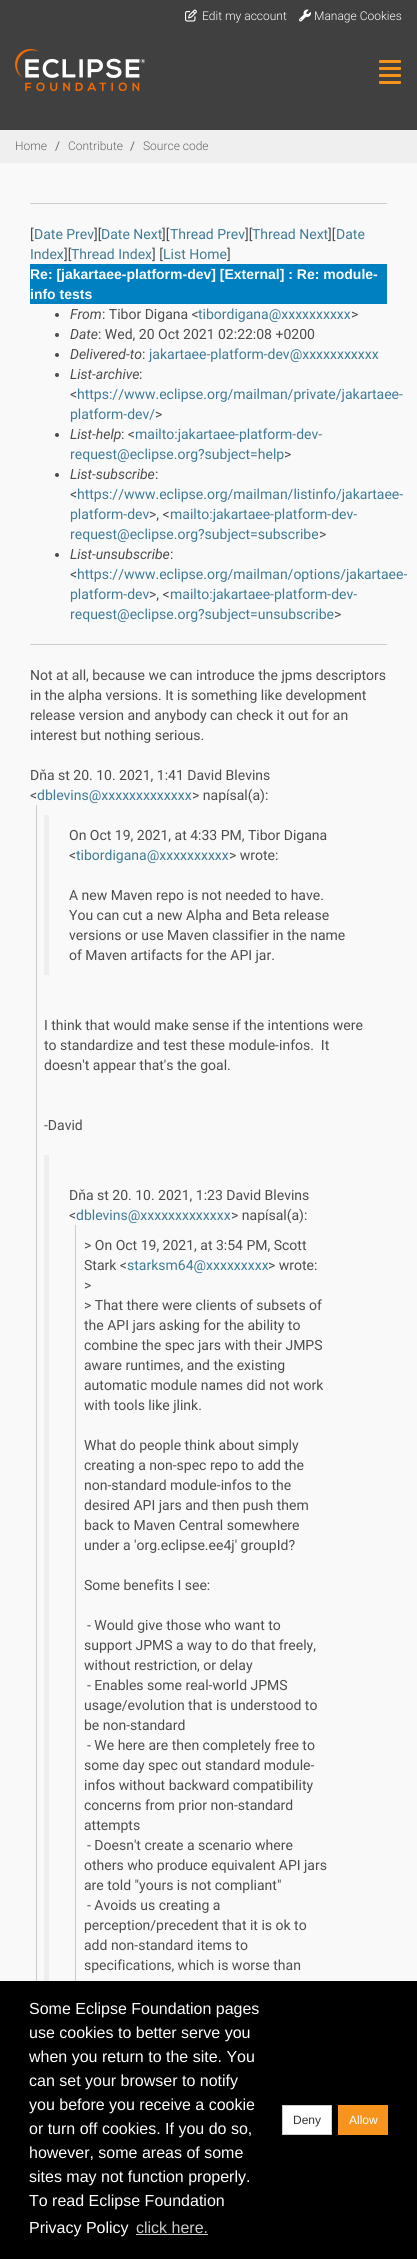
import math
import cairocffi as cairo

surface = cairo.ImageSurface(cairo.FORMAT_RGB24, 417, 2259)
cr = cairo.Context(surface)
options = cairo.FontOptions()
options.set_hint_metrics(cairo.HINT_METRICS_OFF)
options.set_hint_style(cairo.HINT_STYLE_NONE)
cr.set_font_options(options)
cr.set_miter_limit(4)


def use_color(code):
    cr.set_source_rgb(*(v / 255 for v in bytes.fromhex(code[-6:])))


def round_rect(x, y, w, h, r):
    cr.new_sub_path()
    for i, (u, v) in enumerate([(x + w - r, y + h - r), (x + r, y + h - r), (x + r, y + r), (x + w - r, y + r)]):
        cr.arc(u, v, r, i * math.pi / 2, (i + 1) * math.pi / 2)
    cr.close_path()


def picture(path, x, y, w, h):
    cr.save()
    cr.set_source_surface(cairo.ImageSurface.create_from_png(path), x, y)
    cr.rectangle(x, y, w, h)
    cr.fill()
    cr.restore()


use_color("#f9f9f9")
cr.paint()
use_color("#404040")
cr.rectangle(0, 0, 417, 130)
cr.fill()
picture("img1.png", 185, 9, 12, 13)
cr.select_font_face("Roboto Light")
cr.set_font_size(12)
use_color("#ffffff")
cr.move_to(202, 20)
cr.show_text("Edit my account")
picture("img2.png", 299, 9, 12, 13)
cr.move_to(314, 20)
cr.show_text("Manage Cookies")
picture("img3.png", 15, 49, 130, 42)
use_color("#f7941e")
round_rect(379, 60, 22, 3, 1)
cr.fill()
round_rect(379, 67, 22, 3, 1)
cr.fill()
round_rect(379, 74, 22, 3, 1)
cr.fill()
round_rect(379, 81, 22, 3, 1)
cr.fill()
use_color("#efefef")
cr.rectangle(0, 130, 417, 33)
cr.fill()
use_color("#656668")
cr.move_to(15, 150)
cr.show_text("Home")
cr.select_font_face("Roboto")
cr.move_to(55, 150)
cr.show_text("/")
cr.select_font_face("Roboto Light")
cr.move_to(68, 150)
cr.show_text("Contribute")
cr.select_font_face("Roboto")
cr.move_to(130, 150)
cr.show_text("/")
cr.select_font_face("Roboto Light")
cr.move_to(143, 150)
cr.show_text("Source code")
use_color("#cccccc")
cr.rectangle(30, 203, 357, 1)
cr.fill()
cr.select_font_face("Roboto")
cr.set_font_size(14)
use_color("#4c4d4e")
cr.move_to(30, 239)
cr.show_text("[")
use_color("#3f7b96")
cr.move_to(34, 239)
cr.show_text("Date Prev")
use_color("#4c4d4e")
cr.move_to(94, 239)
cr.show_text("][")
use_color("#3f7b96")
cr.move_to(101, 239)
cr.show_text("Date Next")
use_color("#4c4d4e")
cr.move_to(162, 239)
cr.show_text("][")
use_color("#3f7b96")
cr.move_to(170, 239)
cr.show_text("Thread Prev")
use_color("#4c4d4e")
cr.move_to(245, 239)
cr.show_text("][")
use_color("#3f7b96")
cr.move_to(252, 239)
cr.show_text("Thread Next")
use_color("#4c4d4e")
cr.move_to(328, 239)
cr.show_text("][")
use_color("#3f7b96")
cr.move_to(336, 239)
cr.show_text("Date")
cr.move_to(30, 259)
cr.show_text("Index")
use_color("#4c4d4e")
cr.move_to(64, 259)
cr.show_text("][")
use_color("#3f7b96")
cr.move_to(71, 259)
cr.show_text("Thread Index")
use_color("#4c4d4e")
cr.move_to(152, 259)
cr.show_text("] [")
use_color("#3f7b96")
cr.move_to(163, 259)
cr.show_text("List Home")
use_color("#4c4d4e")
cr.move_to(227, 259)
cr.show_text("]")
use_color("#0080c0")
cr.rectangle(30, 264, 357, 40)
cr.fill()
cr.select_font_face("Liberation Sans", cairo.FONT_SLANT_NORMAL, cairo.FONT_WEIGHT_BOLD)
use_color("#ffffff")
cr.move_to(30, 279)
cr.show_text("Re: [jakartaee-platform-dev] [External] : Re: module-")
cr.move_to(30, 299)
cr.show_text("info tests")
use_color("#4c4d4e")
cr.new_path()
cr.arc(57, 315, 2, 0, 2 * math.pi)
cr.fill()
cr.select_font_face("Roboto", cairo.FONT_SLANT_ITALIC)
cr.move_to(70, 319)
cr.show_text("From")
cr.select_font_face("Roboto")
cr.move_to(102, 319)
cr.show_text(": Tibor Digana <")
use_color("#3f7b96")
cr.move_to(198, 319)
cr.show_text("tibordigana@xxxxxxxxxx")
use_color("#4c4d4e")
cr.move_to(351, 319)
cr.show_text(">")
cr.new_path()
cr.arc(57, 335, 2, 0, 2 * math.pi)
cr.fill()
cr.select_font_face("Roboto", cairo.FONT_SLANT_ITALIC)
cr.move_to(70, 339)
cr.show_text("Date")
cr.select_font_face("Roboto")
cr.move_to(98, 339)
cr.show_text(": Wed, 20 Oct 2021 02:22:08 +0200")
cr.new_path()
cr.arc(57, 355, 2, 0, 2 * math.pi)
cr.fill()
cr.select_font_face("Roboto", cairo.FONT_SLANT_ITALIC)
cr.move_to(70, 359)
cr.show_text("Delivered-to")
cr.select_font_face("Roboto")
cr.move_to(142, 359)
cr.show_text(":")
use_color("#3f7b96")
cr.move_to(149, 359)
cr.show_text("jakartaee-platform-dev@xxxxxxxxxxx")
use_color("#4c4d4e")
cr.new_path()
cr.arc(57, 375, 2, 0, 2 * math.pi)
cr.fill()
cr.select_font_face("Roboto", cairo.FONT_SLANT_ITALIC)
cr.move_to(70, 379)
cr.show_text("List-archive")
cr.select_font_face("Roboto")
cr.move_to(139, 379)
cr.show_text(":")
cr.move_to(70, 399)
cr.show_text("<")
use_color("#3f7b96")
cr.move_to(77, 399)
cr.show_text("https://www.eclipse.org/mailman/private/jakartaee-")
cr.move_to(70, 419)
cr.show_text("platform-dev/")
use_color("#4c4d4e")
cr.move_to(155, 419)
cr.show_text(">")
cr.new_path()
cr.arc(57, 435, 2, 0, 2 * math.pi)
cr.fill()
cr.select_font_face("Roboto", cairo.FONT_SLANT_ITALIC)
cr.move_to(70, 439)
cr.show_text("List-help")
cr.select_font_face("Roboto")
cr.move_to(121, 439)
cr.show_text(": <")
use_color("#3f7b96")
cr.move_to(135, 439)
cr.show_text("mailto:jakartaee-platform-dev-")
cr.move_to(70, 459)
cr.show_text("request@eclipse.org?subject=help")
use_color("#4c4d4e")
cr.move_to(284, 459)
cr.show_text(">")
cr.new_path()
cr.arc(57, 475, 2, 0, 2 * math.pi)
cr.fill()
cr.select_font_face("Roboto", cairo.FONT_SLANT_ITALIC)
cr.move_to(70, 479)
cr.show_text("List-subscribe")
cr.select_font_face("Roboto")
cr.move_to(155, 479)
cr.show_text(":")
cr.move_to(70, 499)
cr.show_text("<")
use_color("#3f7b96")
cr.move_to(77, 499)
cr.show_text("https://www.eclipse.org/mailman/listinfo/jakartaee-")
cr.move_to(70, 519)
cr.show_text("platform-dev")
use_color("#4c4d4e")
cr.move_to(149, 519)
cr.show_text(">, <")
use_color("#3f7b96")
cr.move_to(170, 519)
cr.show_text("mailto:jakartaee-platform-dev-")
cr.move_to(70, 539)
cr.show_text("request@eclipse.org?subject=subscribe")
use_color("#4c4d4e")
cr.move_to(319, 539)
cr.show_text(">")
cr.new_path()
cr.arc(57, 555, 2, 0, 2 * math.pi)
cr.fill()
cr.select_font_face("Roboto", cairo.FONT_SLANT_ITALIC)
cr.move_to(70, 559)
cr.show_text("List-unsubscribe")
cr.select_font_face("Roboto")
cr.move_to(170, 559)
cr.show_text(":")
cr.move_to(70, 579)
cr.show_text("<")
use_color("#3f7b96")
cr.move_to(77, 579)
cr.show_text("https://www.eclipse.org/mailman/options/jakartaee-")
cr.move_to(70, 599)
cr.show_text("platform-dev")
use_color("#4c4d4e")
cr.move_to(149, 599)
cr.show_text(">, <")
use_color("#3f7b96")
cr.move_to(170, 599)
cr.show_text("mailto:jakartaee-platform-dev-")
cr.move_to(70, 619)
cr.show_text("request@eclipse.org?subject=unsubscribe")
use_color("#4c4d4e")
cr.move_to(334, 619)
cr.show_text(">")
use_color("#cccccc")
cr.rectangle(30, 644, 357, 1)
cr.fill()
use_color("#4c4d4e")
cr.move_to(30, 680)
cr.show_text("Not at all, because we can introduce the jpms descriptors")
cr.move_to(30, 700)
cr.show_text("in the alpha versions. It is something like development")
cr.move_to(30, 720)
cr.show_text("release version and anybody can check it out for an")
cr.move_to(30, 740)
cr.show_text("interest but nothing serious.")
cr.move_to(30, 780)
cr.show_text("Dňa st 20. 10. 2021, 1:41 David Blevins")
cr.move_to(30, 800)
cr.show_text("<")
use_color("#3f7b96")
cr.move_to(37, 800)
cr.show_text("dblevins@xxxxxxxxxxxxx")
use_color("#4c4d4e")
cr.move_to(192, 800)
cr.show_text("> napísal(a):")
use_color("#cccccc")
cr.rectangle(36, 805, 1, 1176)
cr.fill()
use_color("#eeeeee")
cr.rectangle(44, 815, 5, 160)
cr.fill()
use_color("#4c4d4e")
cr.move_to(69, 840)
cr.show_text("On Oct 19, 2021, at 4:33 PM, Tibor Digana")
cr.move_to(69, 860)
cr.show_text("<")
use_color("#3f7b96")
cr.move_to(76, 860)
cr.show_text("tibordigana@xxxxxxxxxx")
use_color("#4c4d4e")
cr.move_to(229, 860)
cr.show_text("> wrote:")
cr.move_to(69, 900)
cr.show_text("A new Maven repo is not needed to have.")
cr.move_to(69, 920)
cr.show_text("You can cut a new Alpha and Beta release")
cr.move_to(69, 940)
cr.show_text("versions or use Maven classifier in the name")
cr.move_to(69, 960)
cr.show_text("of Maven artifacts for the API jar.")
cr.move_to(44, 1030)
cr.show_text("I think that would make sense if the intentions were")
cr.move_to(44, 1050)
cr.show_text("to standardize and test these module-infos.  It")
cr.move_to(44, 1070)
cr.show_text("doesn't appear that's the goal.")
cr.move_to(44, 1130)
cr.show_text("-David")
use_color("#eeeeee")
cr.rectangle(44, 1155, 5, 826)
cr.fill()
use_color("#4c4d4e")
cr.move_to(69, 1200)
cr.show_text("Dňa st 20. 10. 2021, 1:23 David Blevins")
cr.move_to(69, 1220)
cr.show_text("<")
use_color("#3f7b96")
cr.move_to(76, 1220)
cr.show_text("dblevins@xxxxxxxxxxxxx")
use_color("#4c4d4e")
cr.move_to(231, 1220)
cr.show_text("> napísal(a):")
use_color("#cccccc")
cr.rectangle(75, 1225, 1, 756)
cr.fill()
use_color("#4c4d4e")
cr.move_to(84, 1250)
cr.show_text("> On Oct 19, 2021, at 3:54 PM, Scott")
cr.move_to(84, 1270)
cr.show_text("Stark <")
use_color("#3f7b96")
cr.move_to(127, 1270)
cr.show_text("starksm64@xxxxxxxxx")
use_color("#4c4d4e")
cr.move_to(268, 1270)
cr.show_text("> wrote:")
cr.move_to(84, 1290)
cr.show_text(">")
cr.move_to(84, 1310)
cr.show_text("> That there were clients of subsets of")
cr.move_to(84, 1330)
cr.show_text("the API jars asking for the ability to")
cr.move_to(84, 1350)
cr.show_text("combine the spec jars with their JMPS")
cr.move_to(84, 1370)
cr.show_text("aware runtimes, and the existing")
cr.move_to(84, 1390)
cr.show_text("automatic module names did not work")
cr.move_to(84, 1410)
cr.show_text("with tools like jlink.")
cr.move_to(84, 1450)
cr.show_text("What do people think about simply")
cr.move_to(84, 1470)
cr.show_text("creating a non-spec repo to add the")
cr.move_to(84, 1490)
cr.show_text("non-standard module-infos to the")
cr.move_to(84, 1510)
cr.show_text("desired API jars and then push them")
cr.move_to(84, 1530)
cr.show_text("back to Maven Central somewhere")
cr.move_to(84, 1550)
cr.show_text("under a 'org.eclipse.ee4j' groupId?")
cr.move_to(84, 1590)
cr.show_text("Some benefits I see:")
cr.move_to(87, 1630)
cr.show_text("- Would give those who want to")
cr.move_to(84, 1650)
cr.show_text("support JPMS a way to do that freely,")
cr.move_to(84, 1670)
cr.show_text("without restriction, or delay")
cr.move_to(87, 1690)
cr.show_text("- Enables some real-world JPMS")
cr.move_to(84, 1710)
cr.show_text("usage/evolution that is understood to")
cr.move_to(84, 1730)
cr.show_text("be non-standard")
cr.move_to(87, 1750)
cr.show_text("- We here are then completely free to")
cr.move_to(84, 1770)
cr.show_text("some day spec out standard module-")
cr.move_to(84, 1790)
cr.show_text("infos without backward compatibility")
cr.move_to(84, 1810)
cr.show_text("concerns from prior non-standard")
cr.move_to(84, 1830)
cr.show_text("attempts")
cr.move_to(87, 1850)
cr.show_text("- Doesn't create a scenario where")
cr.move_to(84, 1870)
cr.show_text("others who produce equivalent API jars")
cr.move_to(84, 1890)
cr.show_text("are told \"yours is not compliant\"")
cr.move_to(87, 1910)
cr.show_text("- Avoids us creating a")
cr.move_to(84, 1930)
cr.show_text("perception/precedent that it is ok to")
cr.move_to(84, 1950)
cr.show_text("add non-standard items to")
cr.move_to(84, 1970)
cr.show_text("specifications, which is worse than")
use_color("#000000")
cr.rectangle(0, 1981, 417, 278)
cr.fill()
cr.select_font_face("Liberation Sans")
cr.set_font_size(16)
use_color("#ffffff")
cr.move_to(29, 2014)
cr.show_text("Some Eclipse Foundation pages")
cr.move_to(29, 2038)
cr.show_text("use cookies to better serve you")
cr.move_to(29, 2062)
cr.show_text("when you return to the site. You")
cr.move_to(29, 2086)
cr.show_text("can set your browser to notify")
cr.move_to(29, 2110)
cr.show_text("you before you receive a cookie")
cr.move_to(29, 2134)
cr.show_text("or turn off cookies. If you do so,")
cr.move_to(29, 2158)
cr.show_text("however, some areas of some")
cr.move_to(29, 2182)
cr.show_text("sites may not function properly.")
cr.move_to(29, 2206)
cr.show_text("To read Eclipse Foundation")
cr.move_to(29, 2233)
cr.show_text("Privacy Policy")
use_color("#cccccc")
cr.move_to(136, 2233)
cr.show_text("click here.")
cr.rectangle(136, 2234, 72, 1)
cr.fill()
use_color("#ffffff")
cr.rectangle(282.5, 2105.5, 49, 29)
cr.fill_preserve()
use_color("#cccccc")
cr.set_line_width(1)
cr.stroke()
cr.set_font_size(12)
use_color("#333333")
cr.move_to(293, 2124)
cr.show_text("Deny")
use_color("#f7941e")
cr.rectangle(338, 2105, 50, 30)
cr.fill()
use_color("#ffffff")
cr.move_to(349, 2124)
cr.show_text("Allow")
surface.write_to_png("result.png")
